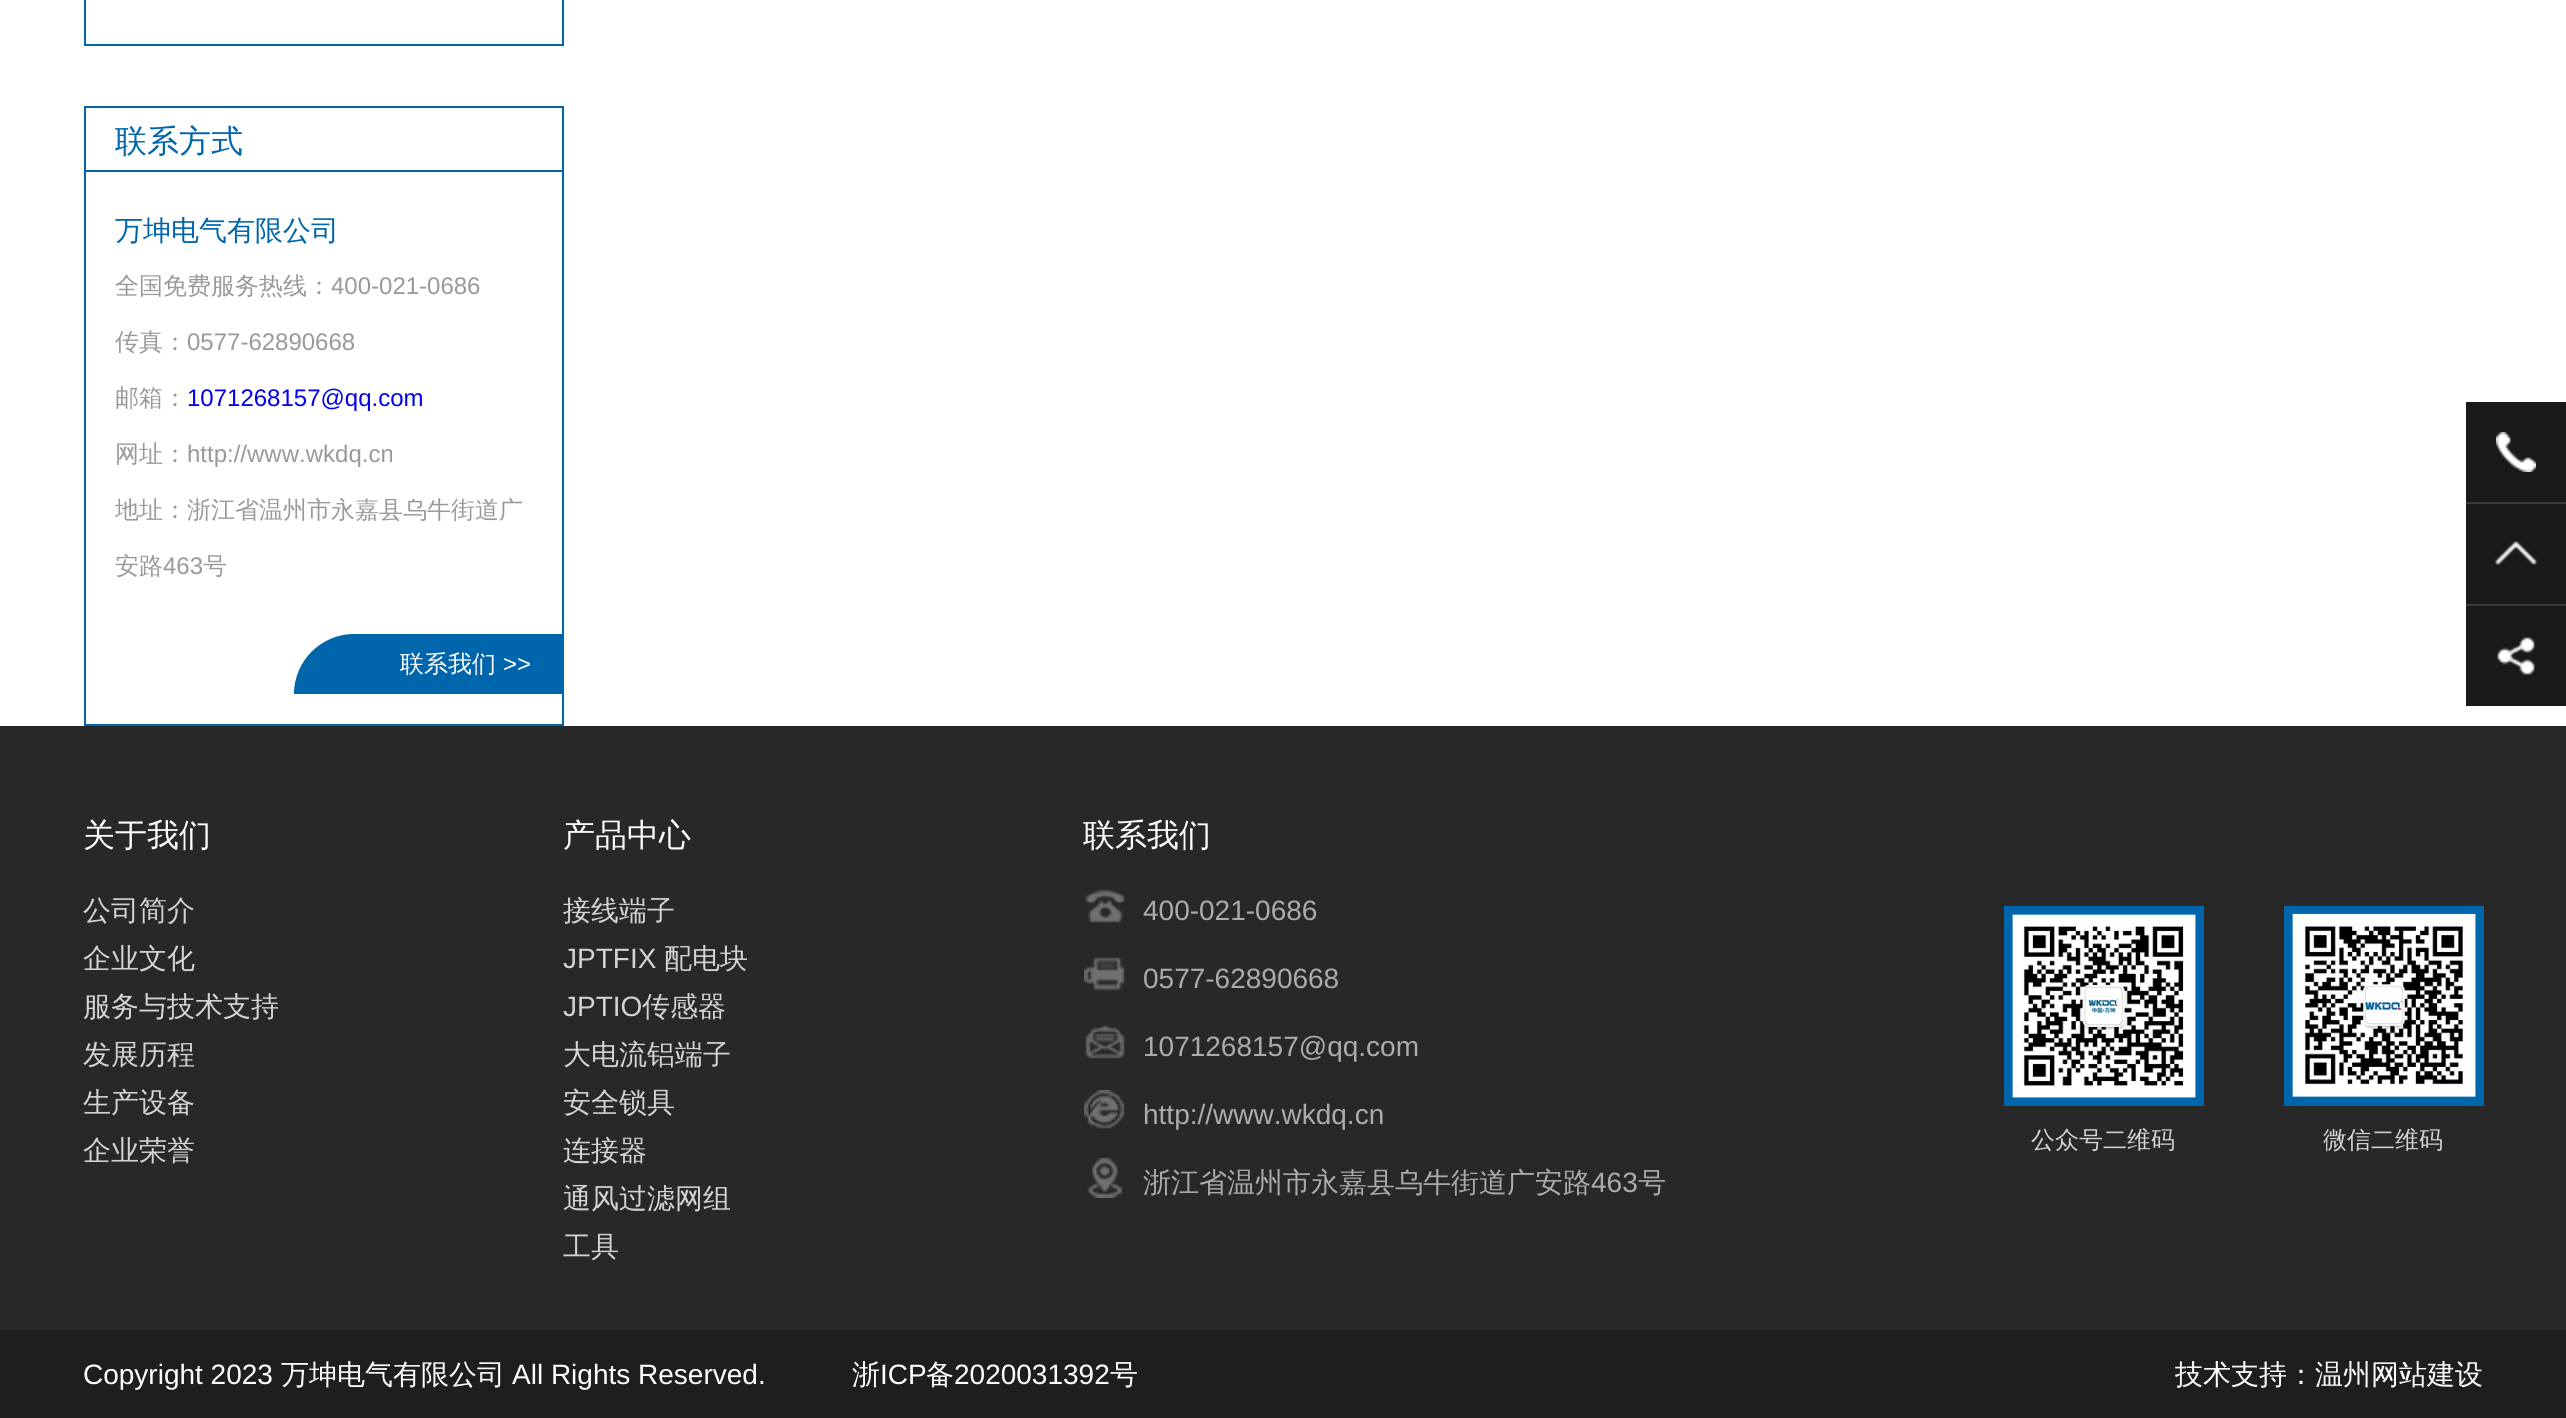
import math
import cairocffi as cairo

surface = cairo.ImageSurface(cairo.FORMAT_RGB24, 2566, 1418)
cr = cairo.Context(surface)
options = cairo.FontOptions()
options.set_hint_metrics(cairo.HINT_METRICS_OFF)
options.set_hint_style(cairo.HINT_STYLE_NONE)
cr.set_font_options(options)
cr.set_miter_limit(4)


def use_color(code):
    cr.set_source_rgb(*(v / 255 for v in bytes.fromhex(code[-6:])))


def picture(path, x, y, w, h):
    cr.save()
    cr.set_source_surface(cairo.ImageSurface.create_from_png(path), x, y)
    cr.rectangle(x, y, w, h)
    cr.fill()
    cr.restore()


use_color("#ffffff")
cr.paint()
cr.rectangle(85, -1, 478, 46)
use_color("#0066ab")
cr.stroke()
cr.rectangle(85, 107, 478, 618)
cr.stroke()
cr.rectangle(86, 170, 476, 2)
cr.fill()
cr.select_font_face("WenQuanYi Zen Hei Medium")
cr.set_font_size(32)
cr.move_to(115, 152)
cr.show_text("联系方式")
cr.set_font_size(28)
cr.move_to(115, 240)
cr.show_text("万坤电气有限公司")
cr.set_font_size(24)
use_color("#999999")
cr.move_to(115, 294)
cr.show_text("全国免费服务热线：")
cr.select_font_face("Liberation Sans")
cr.move_to(331, 294)
cr.show_text("400-021-0686")
cr.select_font_face("WenQuanYi Zen Hei Medium")
cr.move_to(115, 350)
cr.show_text("传真：")
cr.select_font_face("Liberation Sans")
cr.move_to(187, 350)
cr.show_text("0577-62890668")
cr.select_font_face("WenQuanYi Zen Hei Medium")
cr.move_to(115, 406)
cr.show_text("邮箱：")
cr.select_font_face("Liberation Sans")
use_color("#0000ee")
cr.move_to(187, 406)
cr.show_text("1071268157@qq.com")
cr.select_font_face("WenQuanYi Zen Hei Medium")
use_color("#999999")
cr.move_to(115, 462)
cr.show_text("网址：")
cr.select_font_face("Liberation Sans")
cr.move_to(187, 462)
cr.show_text("http://www.wkdq.cn")
cr.select_font_face("WenQuanYi Zen Hei Medium")
cr.move_to(115, 518)
cr.show_text("地址：浙江省温州市永嘉县乌牛街道广")
cr.move_to(115, 574)
cr.show_text("安路")
cr.select_font_face("Liberation Sans")
cr.move_to(163, 574)
cr.show_text("463")
cr.select_font_face("WenQuanYi Zen Hei Medium")
cr.move_to(203, 574)
cr.show_text("号")
use_color("#0066ab")
cr.new_path()
cr.move_to(354, 634)
cr.line_to(562, 634)
cr.line_to(562, 694)
cr.line_to(294, 694)
cr.curve_to(294, 661, 321, 634, 354, 634)
cr.close_path()
cr.fill()
use_color("#ffffff")
cr.move_to(400, 672)
cr.show_text("联系我们")
cr.select_font_face("Liberation Sans")
cr.move_to(503, 672)
cr.show_text(">>")
use_color("#3b3b3b")
cr.rectangle(2466, 502, 100, 2)
cr.fill()
use_color("#191919")
cr.rectangle(2466, 402, 100, 100)
cr.fill()
picture("img1.png", 2496, 432, 40, 40)
use_color("#3b3b3b")
cr.rectangle(2466, 604, 100, 2)
cr.fill()
use_color("#191919")
cr.rectangle(2466, 504, 100, 100)
cr.fill()
picture("img2.png", 2495, 541, 42, 24)
cr.rectangle(2466, 606, 100, 100)
cr.fill()
picture("img3.png", 2497, 637, 38, 38)
use_color("#282828")
cr.rectangle(0, 726, 2566, 604)
cr.fill()
cr.select_font_face("WenQuanYi Zen Hei Medium")
cr.set_font_size(32)
use_color("#ffffff")
cr.move_to(83, 846)
cr.show_text("关于我们")
cr.set_font_size(28)
use_color("#d3d3d3")
cr.move_to(83, 920)
cr.show_text("公司简介")
cr.move_to(83, 968)
cr.show_text("企业文化")
cr.move_to(83, 1016)
cr.show_text("服务与技术支持")
cr.move_to(83, 1064)
cr.show_text("发展历程")
cr.move_to(83, 1112)
cr.show_text("生产设备")
cr.move_to(83, 1160)
cr.show_text("企业荣誉")
cr.set_font_size(32)
use_color("#ffffff")
cr.move_to(563, 846)
cr.show_text("产品中心")
cr.set_font_size(28)
use_color("#d3d3d3")
cr.move_to(563, 920)
cr.show_text("接线端子")
cr.select_font_face("Liberation Sans")
cr.move_to(563, 968)
cr.show_text("JPTFIX")
cr.select_font_face("WenQuanYi Zen Hei Medium")
cr.move_to(664, 968)
cr.show_text("配电块")
cr.select_font_face("Liberation Sans")
cr.move_to(563, 1016)
cr.show_text("JPTIO")
cr.select_font_face("WenQuanYi Zen Hei Medium")
cr.move_to(642, 1016)
cr.show_text("传感器")
cr.move_to(563, 1064)
cr.show_text("大电流铝端子")
cr.move_to(563, 1112)
cr.show_text("安全锁具")
cr.move_to(563, 1160)
cr.show_text("连接器")
cr.move_to(563, 1208)
cr.show_text("通风过滤网组")
cr.move_to(563, 1256)
cr.show_text("工具")
cr.set_font_size(32)
use_color("#ffffff")
cr.move_to(1083, 846)
cr.show_text("联系我们")
picture("img4.png", 1085, 889, 40, 34)
cr.select_font_face("Liberation Sans")
cr.set_font_size(28)
use_color("#ababab")
cr.move_to(1143, 920)
cr.show_text("400-021-0686")
picture("img5.png", 1084, 957, 41, 34)
cr.move_to(1143, 988)
cr.show_text("0577-62890668")
picture("img6.png", 1085, 1025, 40, 34)
cr.move_to(1143, 1056)
cr.show_text("1071268157@qq.com")
picture("img7.png", 1084, 1090, 41, 39)
cr.move_to(1143, 1124)
cr.show_text("http://www.wkdq.cn")
picture("img8.png", 1087, 1158, 36, 40)
cr.select_font_face("WenQuanYi Zen Hei Medium")
cr.move_to(1143, 1192)
cr.show_text("浙江省温州市永嘉县乌牛街道广安路")
cr.select_font_face("Liberation Sans")
cr.move_to(1591, 1192)
cr.show_text("463")
cr.select_font_face("WenQuanYi Zen Hei Medium")
cr.move_to(1638, 1192)
cr.show_text("号")
picture("img9.png", 2004, 906, 200, 200)
cr.set_font_size(24)
use_color("#d3d3d3")
cr.move_to(2031, 1148)
cr.show_text("公众号二维码")
picture("img10.png", 2284, 906, 200, 200)
cr.move_to(2323, 1148)
cr.show_text("微信二维码")
use_color("#1e1e1e")
cr.rectangle(0, 1330, 2566, 88)
cr.fill()
cr.select_font_face("Liberation Sans")
cr.set_font_size(28)
use_color("#ffffff")
cr.move_to(83, 1384)
cr.show_text("Copyright 2023")
cr.select_font_face("WenQuanYi Zen Hei Medium")
cr.move_to(281, 1384)
cr.show_text("万坤电气有限公司")
cr.select_font_face("Liberation Sans")
cr.move_to(512, 1384)
cr.show_text("All Rights Reserved.")
cr.select_font_face("WenQuanYi Zen Hei Medium")
cr.move_to(852, 1384)
cr.show_text("浙")
cr.select_font_face("Liberation Sans")
cr.move_to(880, 1384)
cr.show_text("ICP")
cr.select_font_face("WenQuanYi Zen Hei Medium")
cr.move_to(926, 1384)
cr.show_text("备")
cr.select_font_face("Liberation Sans")
cr.move_to(954, 1384)
cr.show_text("2020031392")
cr.select_font_face("WenQuanYi Zen Hei Medium")
cr.move_to(1110, 1384)
cr.show_text("号")
cr.move_to(2175, 1384)
cr.show_text("技术支持：温州网站建设")
surface.write_to_png("result.png")
